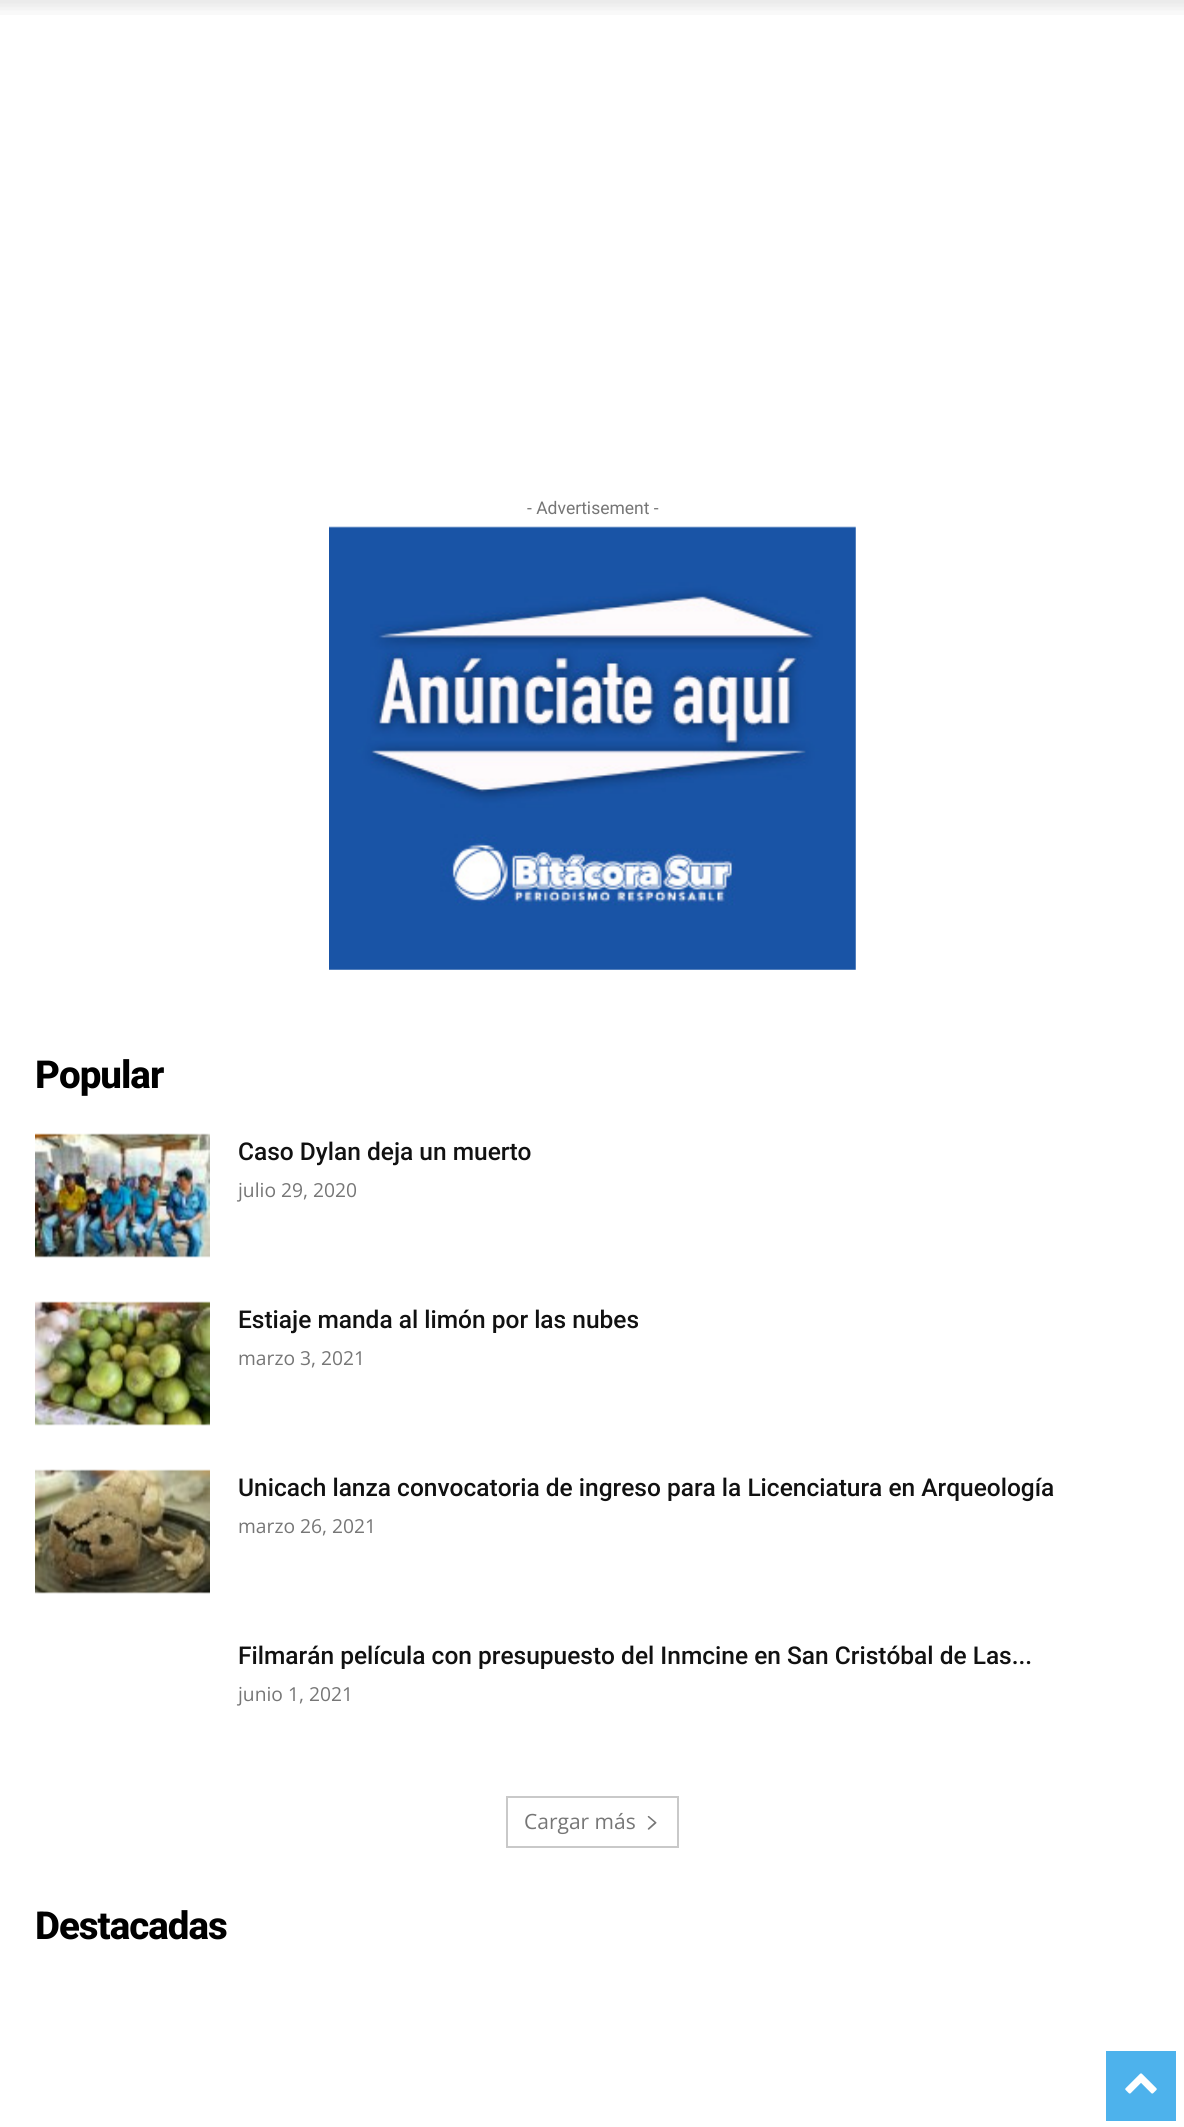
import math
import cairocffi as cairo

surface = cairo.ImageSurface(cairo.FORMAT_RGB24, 1184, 2127)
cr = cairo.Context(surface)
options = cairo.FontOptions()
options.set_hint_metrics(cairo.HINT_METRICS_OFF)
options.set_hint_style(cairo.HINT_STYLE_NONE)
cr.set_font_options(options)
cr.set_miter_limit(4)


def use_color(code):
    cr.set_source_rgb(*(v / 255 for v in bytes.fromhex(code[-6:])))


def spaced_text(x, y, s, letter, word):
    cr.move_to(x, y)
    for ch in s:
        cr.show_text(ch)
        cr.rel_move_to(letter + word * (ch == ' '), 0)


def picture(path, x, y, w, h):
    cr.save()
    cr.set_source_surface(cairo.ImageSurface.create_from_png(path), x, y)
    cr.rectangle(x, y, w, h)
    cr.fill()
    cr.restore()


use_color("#ffffff")
cr.paint()
picture("img1.png", 0, 0, 1184, 15)
cr.select_font_face("Roboto")
cr.set_font_size(17.5)
use_color("#767676")
cr.move_to(527, 514)
cr.show_text("- Advertisement -")
picture("img2.png", 329, 526, 527, 444)
cr.select_font_face("Roboto ExtraBold")
cr.set_font_size(38.5)
use_color("#000000")
spaced_text(35, 1088, "Popular", -1, 0)
picture("img3.png", 35, 1133, 175, 125)
cr.select_font_face("Roboto Medium")
cr.set_font_size(24.5)
use_color("#111111")
cr.move_to(238, 1160)
cr.show_text("Caso Dylan deja un muerto")
cr.select_font_face("Open Sans")
cr.set_font_size(19.25)
use_color("#767676")
cr.move_to(238, 1197)
cr.show_text("julio 29, 2020")
picture("img4.png", 35, 1301, 175, 125)
cr.select_font_face("Roboto Medium")
cr.set_font_size(24.5)
use_color("#111111")
cr.move_to(238, 1328)
cr.show_text("Estiaje manda al limón por las nubes")
cr.select_font_face("Open Sans")
cr.set_font_size(19.25)
use_color("#767676")
cr.move_to(238, 1365)
cr.show_text("marzo 3, 2021")
picture("img5.png", 35, 1469, 175, 125)
cr.select_font_face("Roboto Medium")
cr.set_font_size(24.5)
use_color("#111111")
cr.move_to(238, 1496)
cr.show_text("Unicach lanza convocatoria de ingreso para la Licenciatura en Arqueología")
cr.select_font_face("Open Sans")
cr.set_font_size(19.25)
use_color("#767676")
cr.move_to(238, 1533)
cr.show_text("marzo 26, 2021")
cr.select_font_face("Roboto Medium")
cr.set_font_size(24.5)
use_color("#111111")
cr.move_to(238, 1664)
cr.show_text("Filmarán película con presupuesto del Inmcine en San Cristóbal de Las...")
cr.select_font_face("Open Sans")
cr.set_font_size(19.25)
use_color("#767676")
cr.move_to(238, 1701)
cr.show_text("junio 1, 2021")
cr.rectangle(507, 1797, 171, 50)
use_color("#c9c9c9")
cr.stroke()
cr.set_font_size(21)
use_color("#767676")
cr.move_to(524, 1829)
cr.show_text("Cargar más")
picture("img6.png", 647, 1815, 10, 15)
cr.select_font_face("Roboto ExtraBold")
cr.set_font_size(38.5)
use_color("#000000")
spaced_text(35, 1939, "Destacadas", -1, 0)
use_color("#4db2ec")
cr.rectangle(1106, 2051, 70, 70)
cr.fill()
picture("img7.png", 1125, 2073, 32, 21)
surface.write_to_png("result.png")
